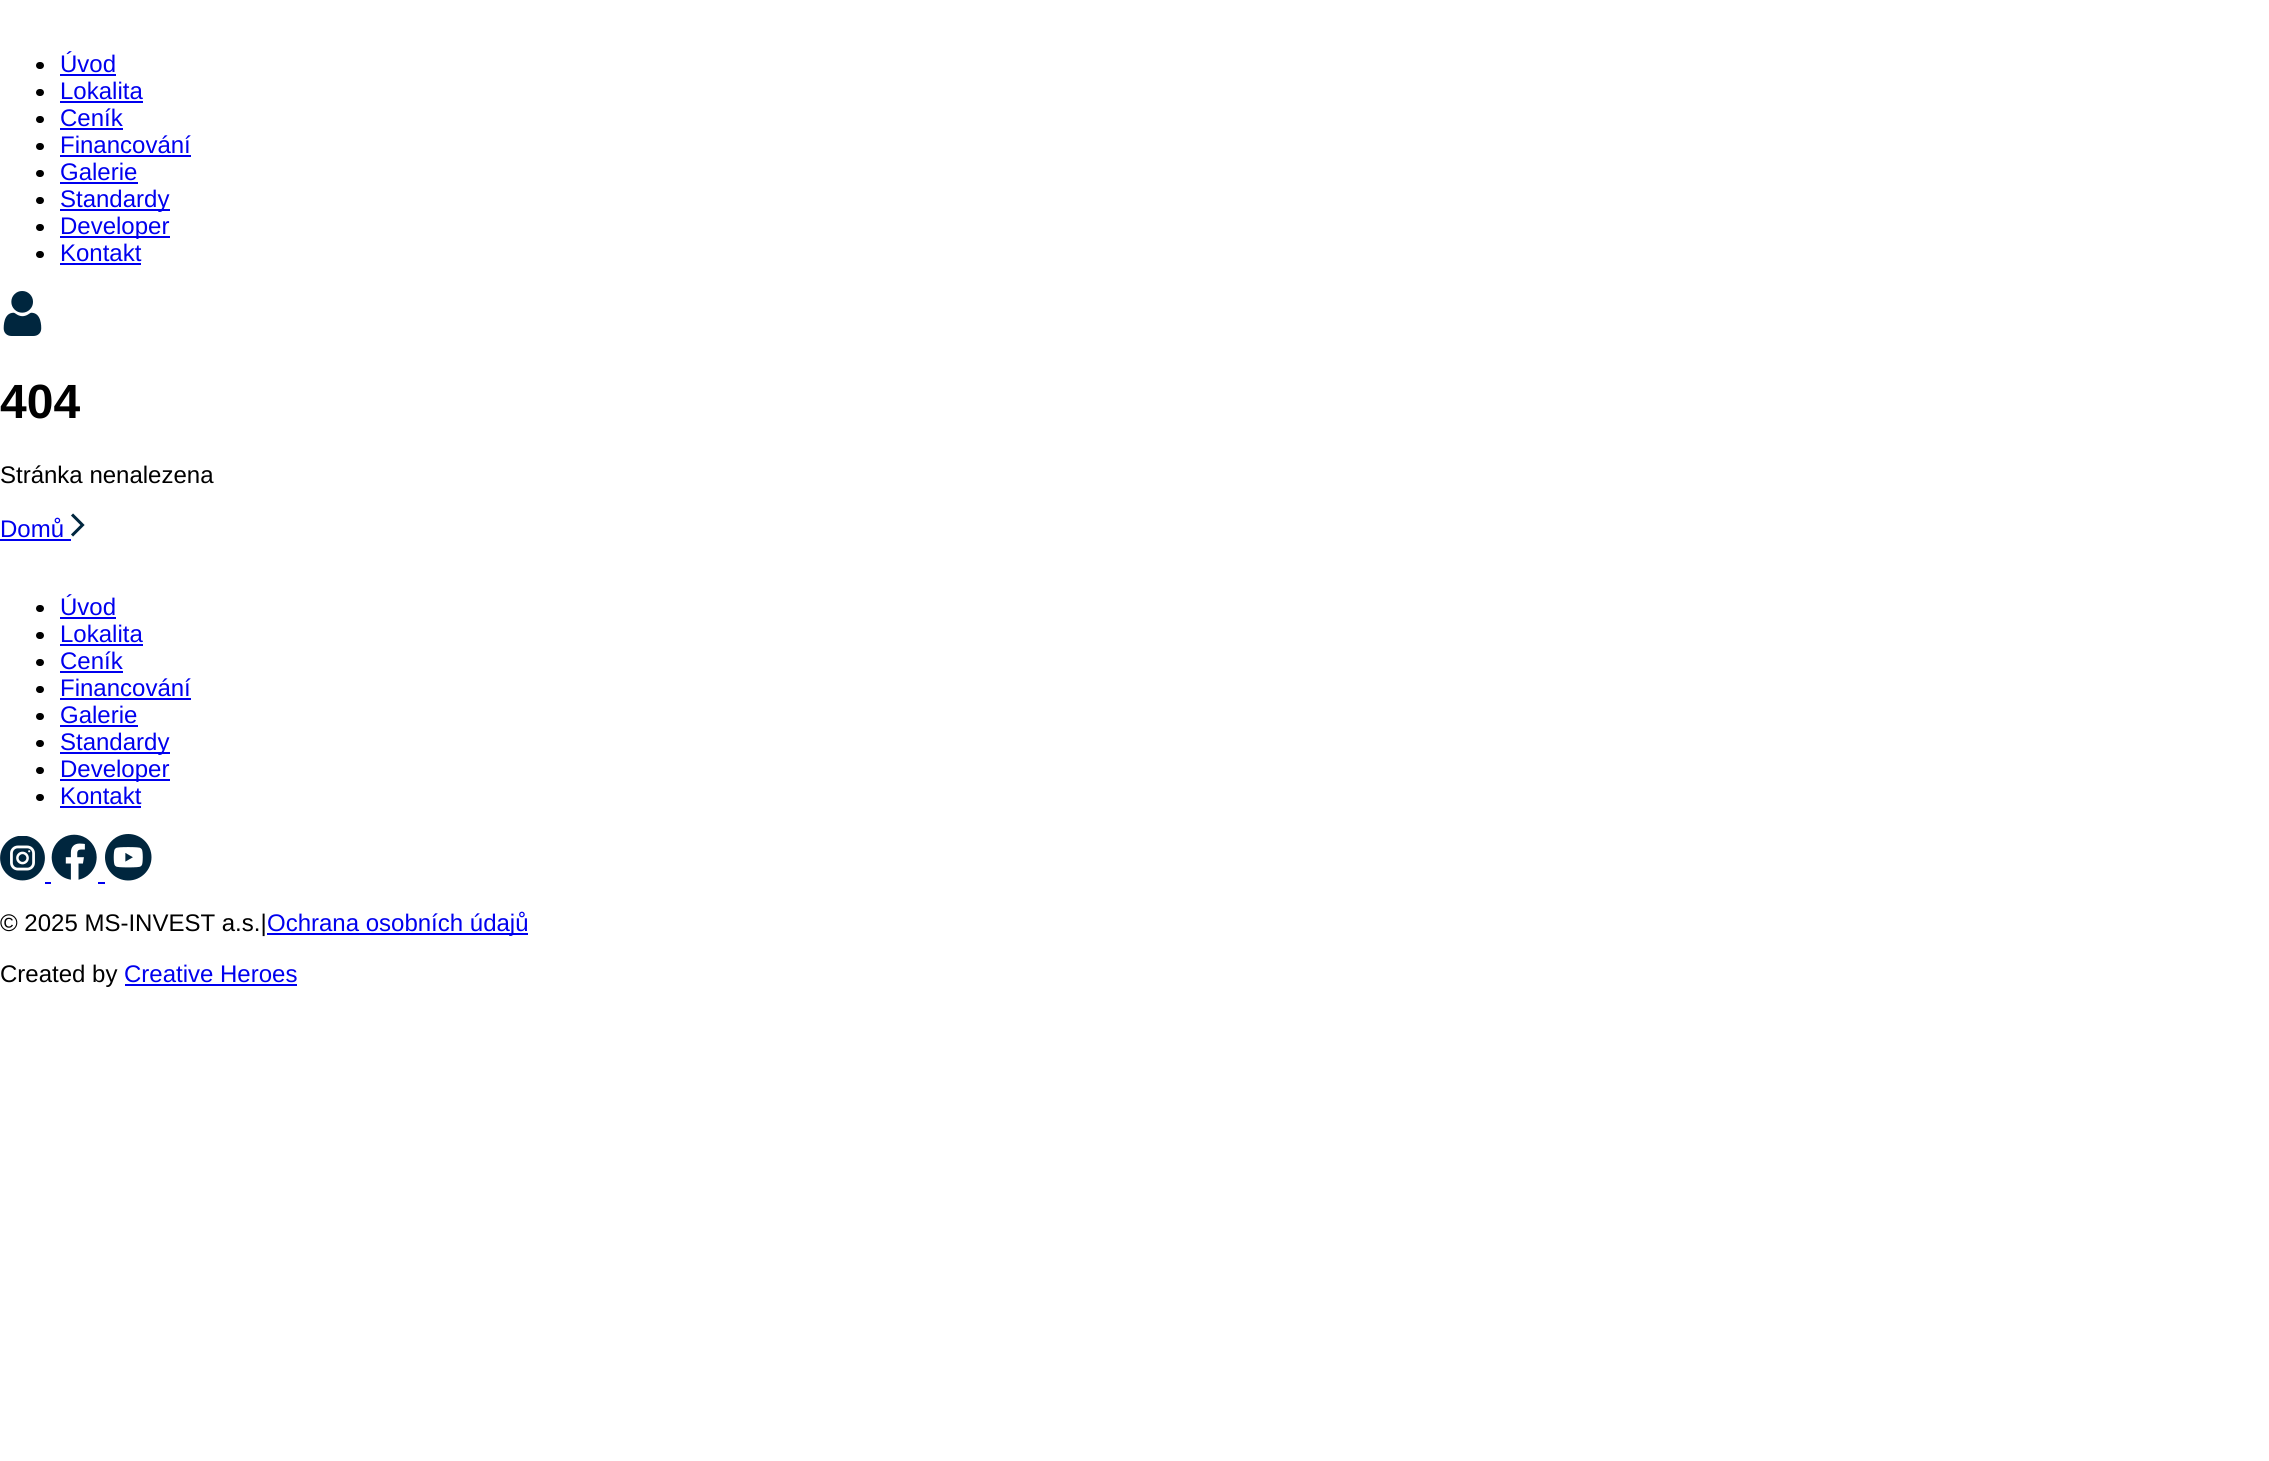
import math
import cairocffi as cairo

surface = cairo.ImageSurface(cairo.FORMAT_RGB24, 2269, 1461)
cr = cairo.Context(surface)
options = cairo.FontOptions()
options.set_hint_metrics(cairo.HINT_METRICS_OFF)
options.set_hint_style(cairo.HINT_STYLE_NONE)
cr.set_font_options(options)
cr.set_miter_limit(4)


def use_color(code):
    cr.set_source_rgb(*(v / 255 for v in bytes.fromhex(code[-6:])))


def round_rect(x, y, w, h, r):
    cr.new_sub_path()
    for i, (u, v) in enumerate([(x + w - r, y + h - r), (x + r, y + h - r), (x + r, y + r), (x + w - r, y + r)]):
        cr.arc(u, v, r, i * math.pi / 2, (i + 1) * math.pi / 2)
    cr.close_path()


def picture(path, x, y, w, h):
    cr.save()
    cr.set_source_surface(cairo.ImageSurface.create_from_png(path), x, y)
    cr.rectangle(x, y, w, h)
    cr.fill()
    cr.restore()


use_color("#ffffff")
cr.paint()
use_color("#000000")
round_rect(36, 62, 8, 7, 3.5)
cr.fill()
cr.select_font_face("Liberation Sans")
cr.set_font_size(24)
use_color("#0000ee")
cr.move_to(60, 72)
cr.show_text("Úvod")
cr.rectangle(60, 74, 56, 2)
cr.fill()
use_color("#000000")
round_rect(36, 89, 8, 7, 3.5)
cr.fill()
use_color("#0000ee")
cr.move_to(60, 99)
cr.show_text("Lokalita")
cr.rectangle(60, 101, 83, 2)
cr.fill()
use_color("#000000")
round_rect(36, 116, 8, 7, 3.5)
cr.fill()
use_color("#0000ee")
cr.move_to(60, 126)
cr.show_text("Ceník")
cr.rectangle(60, 128, 63, 2)
cr.fill()
use_color("#000000")
round_rect(36, 143, 8, 7, 3.5)
cr.fill()
use_color("#0000ee")
cr.move_to(60, 153)
cr.show_text("Financování")
cr.rectangle(60, 155, 131, 2)
cr.fill()
use_color("#000000")
round_rect(36, 170, 8, 7, 3.5)
cr.fill()
use_color("#0000ee")
cr.move_to(60, 180)
cr.show_text("Galerie")
cr.rectangle(60, 182, 78, 2)
cr.fill()
use_color("#000000")
round_rect(36, 197, 8, 7, 3.5)
cr.fill()
use_color("#0000ee")
cr.rectangle(60, 209, 110, 2)
cr.fill()
cr.move_to(60, 207)
cr.show_text("Standardy")
use_color("#000000")
round_rect(36, 224, 8, 7, 3.5)
cr.fill()
use_color("#0000ee")
cr.rectangle(60, 236, 110, 2)
cr.fill()
cr.move_to(60, 234)
cr.show_text("Developer")
use_color("#000000")
round_rect(36, 251, 8, 7, 3.5)
cr.fill()
use_color("#0000ee")
cr.move_to(60, 261)
cr.show_text("Kontakt")
cr.rectangle(60, 263, 81, 2)
cr.fill()
picture("img1.png", 3, 291, 39, 45)
cr.select_font_face("Liberation Sans", cairo.FONT_SLANT_NORMAL, cairo.FONT_WEIGHT_BOLD)
cr.set_font_size(48)
use_color("#000000")
cr.move_to(0, 418)
cr.show_text("404")
cr.select_font_face("Liberation Sans")
cr.set_font_size(24)
cr.move_to(0, 483)
cr.show_text("Stránka nenalezena")
use_color("#0000ee")
cr.move_to(0, 537)
cr.show_text("Domů")
cr.rectangle(0, 539, 71, 2)
cr.fill()
cr.new_path()
cr.move_to(72, 514.5)
cr.line_to(82.5, 525)
cr.line_to(72, 535.5)
use_color("#00263e")
cr.set_line_width(3)
cr.stroke()
use_color("#000000")
round_rect(36, 605, 8, 7, 3.5)
cr.fill()
use_color("#0000ee")
cr.move_to(60, 615)
cr.show_text("Úvod")
cr.rectangle(60, 617, 56, 2)
cr.fill()
use_color("#000000")
round_rect(36, 632, 8, 7, 3.5)
cr.fill()
use_color("#0000ee")
cr.move_to(60, 642)
cr.show_text("Lokalita")
cr.rectangle(60, 644, 83, 2)
cr.fill()
use_color("#000000")
round_rect(36, 659, 8, 7, 3.5)
cr.fill()
use_color("#0000ee")
cr.move_to(60, 669)
cr.show_text("Ceník")
cr.rectangle(60, 671, 63, 2)
cr.fill()
use_color("#000000")
round_rect(36, 686, 8, 7, 3.5)
cr.fill()
use_color("#0000ee")
cr.move_to(60, 696)
cr.show_text("Financování")
cr.rectangle(60, 698, 131, 2)
cr.fill()
use_color("#000000")
round_rect(36, 713, 8, 7, 3.5)
cr.fill()
use_color("#0000ee")
cr.move_to(60, 723)
cr.show_text("Galerie")
cr.rectangle(60, 725, 78, 2)
cr.fill()
use_color("#000000")
round_rect(36, 740, 8, 7, 3.5)
cr.fill()
use_color("#0000ee")
cr.rectangle(60, 752, 110, 2)
cr.fill()
cr.move_to(60, 750)
cr.show_text("Standardy")
use_color("#000000")
round_rect(36, 767, 8, 7, 3.5)
cr.fill()
use_color("#0000ee")
cr.rectangle(60, 779, 110, 2)
cr.fill()
cr.move_to(60, 777)
cr.show_text("Developer")
use_color("#000000")
round_rect(36, 794, 8, 7, 3.5)
cr.fill()
use_color("#0000ee")
cr.move_to(60, 804)
cr.show_text("Kontakt")
cr.rectangle(60, 806, 81, 2)
cr.fill()
picture("img2.png", 0, 836, 45, 45)
picture("img3.png", 51, 834, 46, 46)
picture("img4.png", 105, 834, 47, 47)
cr.rectangle(45, 882, 6, 2)
cr.fill()
cr.rectangle(98, 882, 7, 2)
cr.fill()
use_color("#000000")
cr.move_to(0, 931)
cr.show_text("© 2025 MS-INVEST a.s.|")
use_color("#0000ee")
cr.rectangle(267, 933, 261, 2)
cr.fill()
cr.move_to(267, 931)
cr.show_text("Ochrana osobních údajů")
use_color("#000000")
cr.move_to(0, 982)
cr.show_text("Created by")
use_color("#0000ee")
cr.move_to(124, 982)
cr.show_text("Creative Heroes")
cr.rectangle(125, 984, 172, 2)
cr.fill()
surface.write_to_png("result.png")
